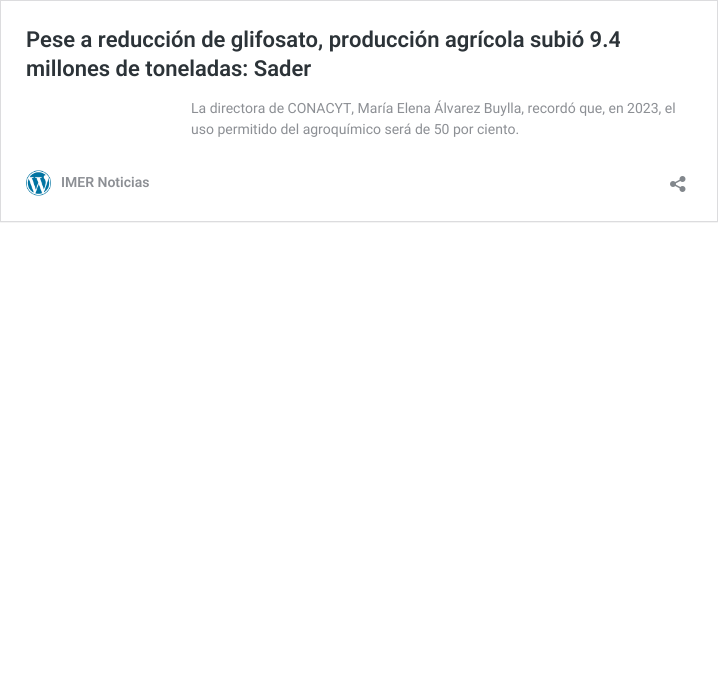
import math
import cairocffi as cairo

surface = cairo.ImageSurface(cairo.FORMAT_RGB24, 718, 683)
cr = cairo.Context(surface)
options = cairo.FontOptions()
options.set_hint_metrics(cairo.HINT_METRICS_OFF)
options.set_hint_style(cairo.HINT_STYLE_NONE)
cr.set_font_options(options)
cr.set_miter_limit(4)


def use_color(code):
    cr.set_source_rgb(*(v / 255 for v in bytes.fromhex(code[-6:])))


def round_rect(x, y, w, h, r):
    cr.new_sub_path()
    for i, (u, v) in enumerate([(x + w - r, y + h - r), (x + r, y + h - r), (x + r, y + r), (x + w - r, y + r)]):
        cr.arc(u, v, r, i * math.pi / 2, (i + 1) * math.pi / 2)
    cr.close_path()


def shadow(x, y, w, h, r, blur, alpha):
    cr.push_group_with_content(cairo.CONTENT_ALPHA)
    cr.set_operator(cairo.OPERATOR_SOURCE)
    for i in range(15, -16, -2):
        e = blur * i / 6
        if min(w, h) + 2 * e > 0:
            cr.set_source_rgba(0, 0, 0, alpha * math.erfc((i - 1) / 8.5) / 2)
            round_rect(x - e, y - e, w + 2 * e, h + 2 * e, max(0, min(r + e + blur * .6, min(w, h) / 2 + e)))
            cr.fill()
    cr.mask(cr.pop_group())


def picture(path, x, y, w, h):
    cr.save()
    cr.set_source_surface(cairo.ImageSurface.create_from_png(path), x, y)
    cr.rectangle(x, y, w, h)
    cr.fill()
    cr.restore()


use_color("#ffffff")
cr.paint()
cr.save()
cr.rectangle(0, 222, 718, 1)
cr.clip()
use_color("#000000")
shadow(0, 1, 718, 222, 0, 0.5, 0.05)
cr.restore()
cr.rectangle(0.5, 0.5, 717, 221)
use_color("#dcdcde")
cr.set_line_width(1)
cr.stroke()
cr.select_font_face("Roboto SemiBold")
cr.set_font_size(22)
use_color("#2c3338")
cr.move_to(26, 47)
cr.show_text("Pese a reducción de glifosato, producción agrícola subió 9.4")
cr.move_to(26, 76)
cr.show_text("millones de toneladas: Sader")
cr.select_font_face("Roboto")
cr.set_font_size(14)
use_color("#8c8f94")
cr.move_to(191, 113)
cr.show_text("La directora de CONACYT, María Elena Álvarez Buylla, recordó que, en 2023, el")
cr.move_to(191, 134)
cr.show_text("uso permitido del agroquímico será de 50 por ciento.")
picture("img1.png", 26, 170, 25, 26)
cr.select_font_face("Roboto SemiBold")
cr.move_to(61, 187)
cr.show_text("IMER Noticias")
picture("img2.png", 670, 176, 16, 16)
surface.write_to_png("result.png")
